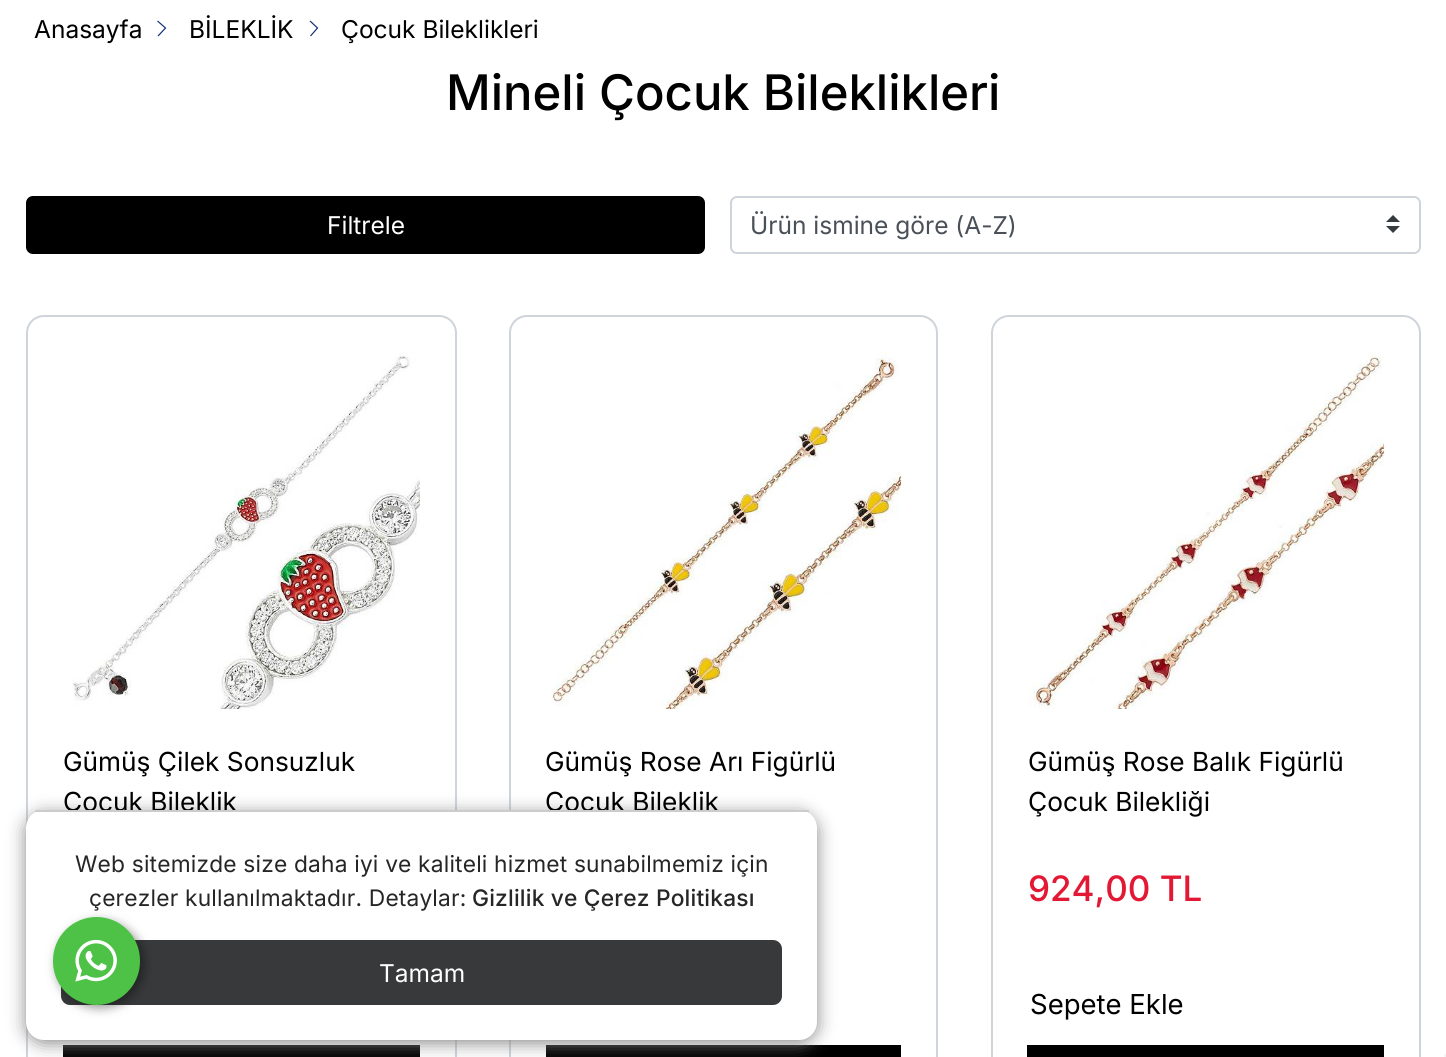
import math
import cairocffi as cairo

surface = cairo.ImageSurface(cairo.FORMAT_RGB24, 1446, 1057)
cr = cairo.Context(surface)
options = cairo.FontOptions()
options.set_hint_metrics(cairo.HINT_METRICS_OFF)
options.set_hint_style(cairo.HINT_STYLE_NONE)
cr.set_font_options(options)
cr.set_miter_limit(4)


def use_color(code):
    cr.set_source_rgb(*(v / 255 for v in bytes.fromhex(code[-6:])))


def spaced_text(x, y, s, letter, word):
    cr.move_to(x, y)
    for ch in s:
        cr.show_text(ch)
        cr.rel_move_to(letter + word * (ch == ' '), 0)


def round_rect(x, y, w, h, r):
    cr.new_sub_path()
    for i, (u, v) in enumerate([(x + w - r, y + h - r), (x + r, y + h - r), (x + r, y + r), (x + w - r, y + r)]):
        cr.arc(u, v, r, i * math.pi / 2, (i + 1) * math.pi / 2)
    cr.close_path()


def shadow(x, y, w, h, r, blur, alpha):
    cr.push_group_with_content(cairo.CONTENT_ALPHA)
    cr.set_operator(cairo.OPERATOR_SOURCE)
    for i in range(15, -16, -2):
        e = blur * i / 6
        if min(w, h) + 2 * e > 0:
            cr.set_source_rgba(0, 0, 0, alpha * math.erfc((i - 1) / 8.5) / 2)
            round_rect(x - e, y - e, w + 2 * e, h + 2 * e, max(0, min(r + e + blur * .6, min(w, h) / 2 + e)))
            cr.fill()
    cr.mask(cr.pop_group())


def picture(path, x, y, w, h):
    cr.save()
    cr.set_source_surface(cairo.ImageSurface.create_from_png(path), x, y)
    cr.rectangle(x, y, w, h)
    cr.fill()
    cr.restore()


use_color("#ffffff")
cr.paint()
cr.select_font_face("Inter")
cr.set_font_size(24.5)
use_color("#000000")
cr.move_to(34, 38)
cr.show_text("Anasayfa")
cr.new_path()
cr.move_to(157.5, 21)
cr.line_to(165.5, 28)
cr.line_to(158, 36)
use_color("#103178")
cr.set_line_width(1.2)
cr.stroke()
use_color("#000000")
cr.move_to(189, 38)
cr.show_text("BİLEKLİK")
cr.new_path()
cr.move_to(310, 21)
cr.line_to(317.5, 28)
cr.line_to(310.5, 36)
use_color("#103178")
cr.stroke()
use_color("#000000")
cr.move_to(341, 38)
cr.show_text("Çocuk Bileklikleri")
cr.select_font_face("Inter Medium")
cr.set_font_size(49)
cr.move_to(446, 110)
cr.show_text("Mineli Çocuk Bileklikleri")
round_rect(27, 316, 429, 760, 17)
use_color("#ced4da")
cr.set_line_width(2)
cr.stroke()
use_color("#000000")
cr.rectangle(63, 1045, 357, 12)
cr.fill()
round_rect(510, 316, 427, 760, 17)
use_color("#ced4da")
cr.stroke()
use_color("#000000")
cr.rectangle(546, 1045, 355, 12)
cr.fill()
use_color("#888888")
shadow(26, 814, 791, 229, 18, 9, 1)
cr.select_font_face("Inter")
cr.set_font_size(26.25)
use_color("#000000")
cr.move_to(63, 811)
cr.show_text("Çocuk Bileklik")
cr.move_to(545, 811)
cr.show_text("Çocuk Bileklik")
use_color("#ffffff")
round_rect(26, 810, 791, 230, 18)
cr.fill()
use_color("#cccccc")
cr.rectangle(35, 810, 774, 2)
cr.fill()
cr.set_font_size(22.75)
use_color("#262626")
spaced_text(75, 872, "Web sitemizde size daha iyi ve kaliteli hizmet sunabilmemiz için", 0.18, 0)
spaced_text(89, 906, "çerezler kullanılmaktadır. Detaylar:", 0.18, 0)
cr.select_font_face("Inter Medium")
spaced_text(472, 906, "Gizlilik ve Çerez Politikası", 0.18, 0)
use_color("#37393b")
round_rect(61, 940, 721, 65, 9)
cr.fill()
cr.select_font_face("Inter")
cr.set_font_size(24.5)
use_color("#ffffff")
cr.move_to(379, 982)
cr.show_text("Tamam")
use_color("#000000")
round_rect(27, 197, 677, 56, 6)
cr.fill_preserve()
cr.stroke()
use_color("#ffffff")
cr.move_to(327, 234)
cr.show_text("Filtrele")
use_color("#343a40")
cr.new_path()
cr.move_to(1393, 215)
cr.line_to(1386, 222)
cr.line_to(1400, 222)
cr.close_path()
cr.move_to(1393, 233)
cr.line_to(1386, 226)
cr.line_to(1400, 226)
cr.close_path()
cr.fill()
round_rect(731, 197, 689, 56, 6)
use_color("#ced4da")
cr.stroke()
use_color("#495057")
cr.move_to(750, 234)
cr.show_text("Ürün ismine göre (A-Z)")
picture("img1.png", 72, 352, 348, 357)
cr.set_font_size(26.25)
use_color("#000000")
cr.move_to(63, 771)
cr.show_text("Gümüş Çilek Sonsuzluk")
picture("img2.png", 551, 352, 351, 357)
cr.move_to(545, 771)
cr.show_text("Gümüş Rose Arı Figürlü")
round_rect(992, 316, 428, 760, 17)
use_color("#ced4da")
cr.stroke()
picture("img3.png", 1028, 352, 357, 357)
use_color("#000000")
cr.move_to(1028, 771)
cr.show_text("Gümüş Rose Balık Figürlü")
cr.move_to(1028, 811)
cr.show_text("Çocuk Bilekliği")
cr.select_font_face("Inter Medium")
cr.set_font_size(35)
use_color("#e21834")
cr.move_to(1028, 901)
cr.show_text("924,00 TL")
cr.select_font_face("Inter")
cr.set_font_size(27.5)
use_color("#000000")
cr.move_to(1030, 1014)
cr.show_text("Sepete Ekle")
cr.rectangle(1027, 1045, 357, 12)
cr.fill()
use_color("#000000")
shadow(56, 921, 88, 87, 43.5, 5, 0.4)
use_color("#4dc247")
round_rect(53, 917, 87, 88, 43.5)
cr.fill()
picture("img4.png", 75, 939, 42, 43)
use_color("#f5f5f5")
cr.rectangle(1444, 1054, 2, 3)
cr.fill()
surface.write_to_png("result.png")
